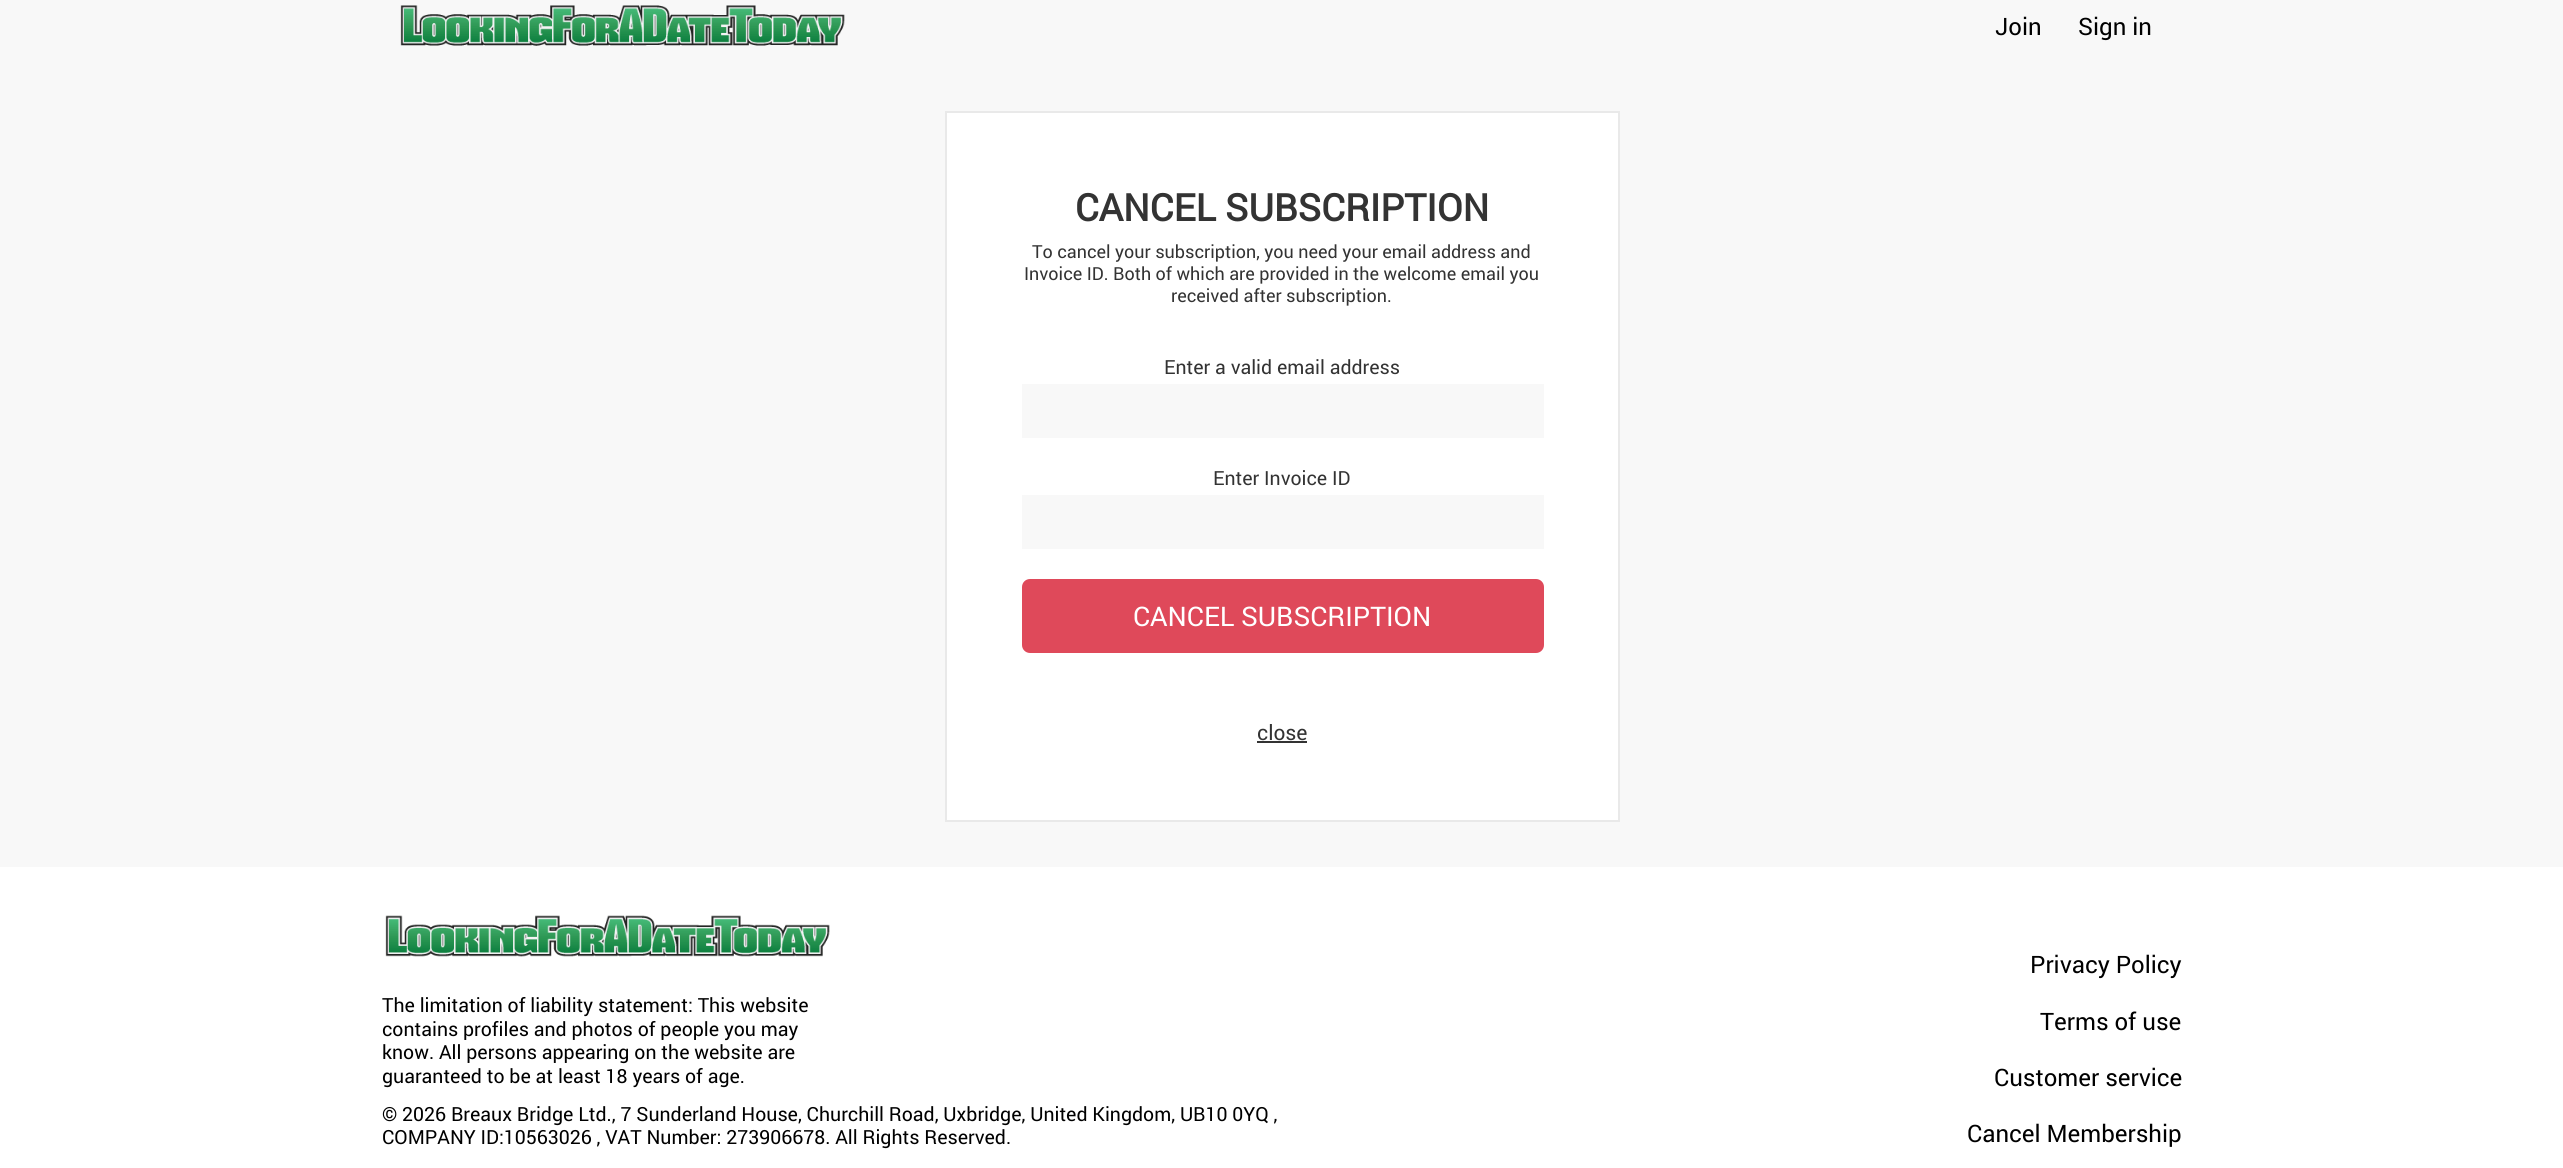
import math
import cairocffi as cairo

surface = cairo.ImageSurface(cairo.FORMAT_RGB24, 2563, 1168)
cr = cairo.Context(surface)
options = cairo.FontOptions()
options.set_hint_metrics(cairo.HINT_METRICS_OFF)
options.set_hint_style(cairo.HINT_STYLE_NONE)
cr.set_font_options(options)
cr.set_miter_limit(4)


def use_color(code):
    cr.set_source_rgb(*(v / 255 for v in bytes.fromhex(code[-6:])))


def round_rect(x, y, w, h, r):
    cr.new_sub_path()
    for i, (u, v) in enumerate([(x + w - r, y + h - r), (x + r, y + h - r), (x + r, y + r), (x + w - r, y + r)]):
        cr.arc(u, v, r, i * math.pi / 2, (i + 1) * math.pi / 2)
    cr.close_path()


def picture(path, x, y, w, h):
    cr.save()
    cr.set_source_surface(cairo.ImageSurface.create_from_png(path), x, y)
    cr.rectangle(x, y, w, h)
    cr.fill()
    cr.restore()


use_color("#f8f8f8")
cr.paint()
picture("img1.png", 400, 5, 445, 41)
cr.select_font_face("Roboto")
cr.set_font_size(24)
use_color("#000000")
cr.move_to(1995, 35)
cr.show_text("Join")
cr.move_to(2078, 35)
cr.show_text("Sign in")
use_color("#ffffff")
cr.rectangle(946, 112, 673, 709)
cr.fill_preserve()
use_color("#e9e9e9")
cr.stroke()
cr.select_font_face("Roboto", cairo.FONT_SLANT_NORMAL, cairo.FONT_WEIGHT_BOLD)
cr.set_font_size(37.5)
use_color("#333333")
cr.move_to(1075, 221)
cr.show_text("CANCEL SUBSCRIPTION")
cr.select_font_face("Roboto")
cr.set_font_size(18)
cr.move_to(1032, 258)
cr.show_text("To cancel your subscription, you need your email address and")
cr.move_to(1024, 280)
cr.show_text("Invoice ID. Both of which are provided in the welcome email you")
cr.move_to(1171, 302)
cr.show_text("received after subscription.")
cr.set_font_size(19.5)
cr.move_to(1164, 374)
cr.show_text("Enter a valid email address")
use_color("#f8f8f8")
cr.rectangle(1022, 384, 522, 54)
cr.fill()
use_color("#333333")
cr.move_to(1213, 485)
cr.show_text("Enter Invoice ID")
use_color("#f8f8f8")
cr.rectangle(1022, 495, 522, 54)
cr.fill()
use_color("#df495a")
round_rect(1022, 579, 522, 74, 8)
cr.fill()
cr.set_font_size(27)
use_color("#ffffff")
cr.move_to(1133, 626)
cr.show_text("CANCEL SUBSCRIPTION")
cr.set_font_size(21)
use_color("#333333")
cr.move_to(1257, 740)
cr.show_text("close")
cr.rectangle(1257, 741, 50, 2)
cr.fill()
use_color("#ffffff")
cr.rectangle(0, 867, 2563, 301)
cr.fill()
cr.set_font_size(19.5)
use_color("#000000")
cr.move_to(382, 1012)
cr.show_text("The limitation of liability statement: This website")
cr.move_to(382, 1036)
cr.show_text("contains profiles and photos of people you may")
cr.move_to(382, 1059)
cr.show_text("know. All persons appearing on the website are")
cr.move_to(382, 1083)
cr.show_text("guaranteed to be at least 18 years of age.")
cr.move_to(382, 1121)
cr.show_text("© 2026 Breaux Bridge Ltd., 7 Sunderland House, Churchill Road, Uxbridge, United Kingdom, UB10 0YQ ,")
cr.move_to(382, 1144)
cr.show_text("COMPANY ID:10563026 , VAT Number: 273906678. All Rights Reserved.")
picture("img2.png", 385, 915, 445, 42)
cr.set_font_size(24)
cr.move_to(2030, 973)
cr.show_text("Privacy Policy")
cr.move_to(2040, 1030)
cr.show_text("Terms of use")
cr.move_to(1994, 1086)
cr.show_text("Customer service")
cr.move_to(1967, 1142)
cr.show_text("Cancel Membership")
surface.write_to_png("result.png")
